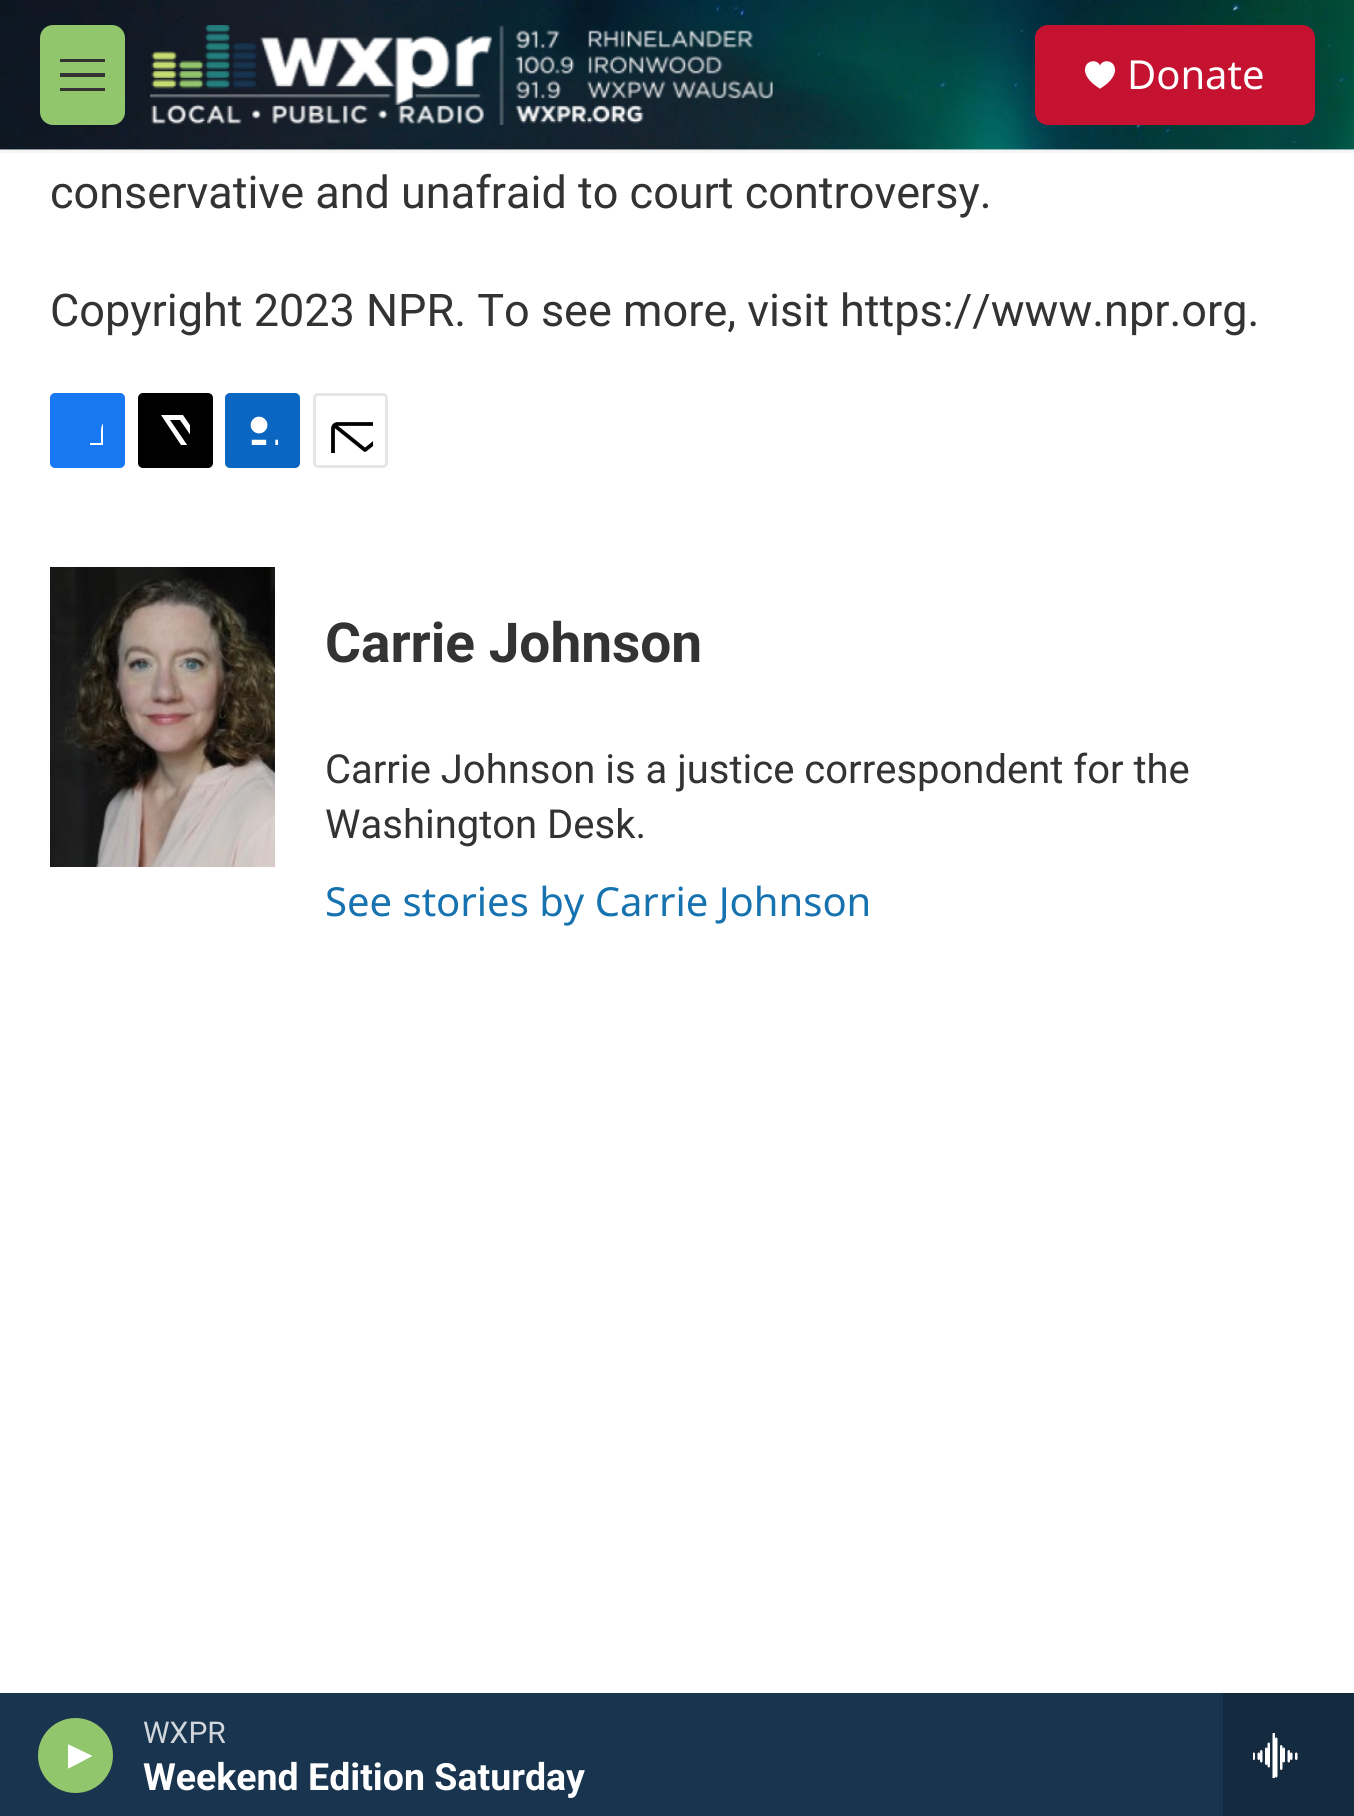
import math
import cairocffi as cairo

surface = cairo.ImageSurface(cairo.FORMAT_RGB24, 1354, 1816)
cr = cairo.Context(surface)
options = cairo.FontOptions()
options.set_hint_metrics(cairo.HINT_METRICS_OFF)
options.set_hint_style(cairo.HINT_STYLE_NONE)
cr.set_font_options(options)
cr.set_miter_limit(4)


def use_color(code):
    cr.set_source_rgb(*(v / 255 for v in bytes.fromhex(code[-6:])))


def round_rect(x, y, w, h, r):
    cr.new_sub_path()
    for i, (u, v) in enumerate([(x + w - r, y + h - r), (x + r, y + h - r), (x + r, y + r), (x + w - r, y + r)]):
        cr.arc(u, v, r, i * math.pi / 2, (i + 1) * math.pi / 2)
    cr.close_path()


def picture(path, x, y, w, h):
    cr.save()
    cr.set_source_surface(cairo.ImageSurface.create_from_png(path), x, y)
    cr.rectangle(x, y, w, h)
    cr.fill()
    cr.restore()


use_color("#ffffff")
cr.paint()
use_color("#f5f5f5")
cr.rectangle(0, 150, 1354, 3)
cr.fill()
picture("img1.png", 0, 0, 1354, 150)
use_color("#92c66c")
round_rect(40, 25, 85, 100, 13)
cr.fill()
use_color("#333333")
cr.set_fill_rule(cairo.FILL_RULE_EVEN_ODD)
cr.new_path()
cr.move_to(60, 77)
cr.line_to(60, 73)
cr.line_to(105, 73)
cr.line_to(105, 77)
cr.close_path()
cr.move_to(60, 62)
cr.line_to(60, 59)
cr.line_to(105, 59)
cr.line_to(105, 62)
cr.close_path()
cr.move_to(60, 91)
cr.line_to(60, 88)
cr.line_to(105, 88)
cr.line_to(105, 91)
cr.close_path()
cr.fill()
picture("img2.png", 150, 25, 623, 100)
use_color("#c41230")
round_rect(1035, 25, 280, 100, 13)
cr.fill()
picture("img3.png", 1085, 61, 30, 28)
cr.select_font_face("Noto Sans")
cr.set_font_size(40)
use_color("#ffffff")
cr.move_to(1127, 89)
cr.show_text("Donate")
use_color("#19344e")
cr.rectangle(0, 1693, 1223, 123)
cr.fill()
use_color("#92c66c")
cr.arc(75.5, 1755.5, 37.5, 0, 2 * math.pi)
cr.fill()
cr.save()
cr.set_fill_rule(cairo.FILL_RULE_WINDING)
cr.rectangle(68, 1743, 25, 27)
cr.clip()
use_color("#ffffff")
cr.new_path()
cr.move_to(67.5, 1744)
cr.line_to(92.5, 1756)
cr.line_to(67.5, 1769)
cr.close_path()
cr.fill()
cr.restore()
cr.select_font_face("Roboto")
cr.set_font_size(30)
use_color("#d1d6dc")
cr.move_to(143, 1743)
cr.show_text("WXPR")
cr.select_font_face("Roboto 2", cairo.FONT_SLANT_NORMAL, cairo.FONT_WEIGHT_BOLD)
cr.set_font_size(37.5)
use_color("#ffffff")
cr.move_to(143, 1790)
cr.show_text("Weekend Edition Saturday")
use_color("#142a3e")
cr.rectangle(1223, 1693, 131, 123)
cr.fill()
picture("img4.png", 1253, 1733, 45, 45)
cr.select_font_face("Roboto")
cr.set_font_size(45)
use_color("#333333")
cr.move_to(50, 208)
cr.show_text("conservative and unafraid to court controversy.")
cr.move_to(50, 326)
cr.show_text("Copyright 2023 NPR. To see more, visit https://www.npr.org.")
use_color("#1778f2")
round_rect(50, 393, 75, 75, 5)
cr.fill()
cr.save()
cr.set_fill_rule(cairo.FILL_RULE_WINDING)
cr.rectangle(73, 415, 30, 30)
cr.clip()
use_color("#ffffff")
cr.new_path()
cr.move_to(114, 468)
cr.line_to(101, 468)
cr.line_to(101, 455)
cr.line_to(90, 455)
cr.line_to(90, 443)
cr.line_to(101, 443)
cr.line_to(101, 429)
cr.curve_to(103, 417, 114, 415, 125, 417)
cr.line_to(125, 428)
cr.curve_to(111, 428, 114, 432, 114, 443)
cr.line_to(125, 443)
cr.line_to(125, 449)
cr.line_to(124, 455)
cr.line_to(114, 455)
cr.close_path()
cr.fill()
cr.restore()
use_color("#000000")
round_rect(138, 393, 75, 75, 5)
cr.fill()
cr.save()
cr.set_fill_rule(cairo.FILL_RULE_WINDING)
cr.rectangle(160, 415, 30, 30)
cr.clip()
use_color("#ffffff")
cr.new_path()
cr.move_to(204, 447)
cr.line_to(213, 460)
cr.curve_to(213, 462, 213, 464, 212, 466)
cr.line_to(180, 420)
cr.line_to(170, 420)
cr.line_to(203, 468)
cr.line_to(197, 468)
cr.line_to(192, 461)
cr.line_to(186, 468)
cr.line_to(180, 468)
cr.line_to(189, 457)
cr.line_to(161, 415)
cr.line_to(183, 415)
cr.line_to(202, 443)
cr.line_to(213, 430)
cr.line_to(213, 437)
cr.close_path()
cr.fill()
cr.restore()
use_color("#0a66c1")
round_rect(225, 393, 75, 75, 5)
cr.fill()
picture("img5.png", 250, 416, 28, 29)
round_rect(314.5, 394.5, 72, 72, 3.5)
use_color("#e6e6e6")
cr.set_line_width(3)
cr.stroke()
cr.save()
cr.set_fill_rule(cairo.FILL_RULE_WINDING)
cr.rectangle(328, 408, 45, 45)
cr.clip()
cr.new_path()
cr.move_to(397, 462.5)
cr.curve_to(397, 465, 395, 467, 392.5, 467)
cr.line_to(337.5, 467)
cr.curve_to(335, 467, 333, 465, 333, 462.5)
cr.line_to(333, 428.5)
cr.curve_to(333, 426, 335, 424, 337.5, 424)
cr.line_to(392.5, 424)
cr.curve_to(395, 424, 397, 426, 397, 428.5)
cr.close_path()
cr.move_to(395.5, 425.5)
cr.line_to(365, 450)
cr.line_to(334.5, 425.5)
use_color("#000000")
cr.set_line_width(3.8)
cr.set_line_cap(cairo.LINE_CAP_ROUND)
cr.set_line_join(cairo.LINE_JOIN_ROUND)
cr.stroke()
cr.restore()
picture("img6.png", 50, 567, 225, 300)
cr.select_font_face("Roboto", cairo.FONT_SLANT_NORMAL, cairo.FONT_WEIGHT_BOLD)
cr.set_font_size(55)
use_color("#333333")
cr.move_to(325, 662)
cr.show_text("Carrie Johnson")
cr.select_font_face("Roboto")
cr.set_font_size(40)
cr.move_to(325, 783)
cr.show_text("Carrie Johnson is a justice correspondent for the")
cr.move_to(325, 838)
cr.show_text("Washington Desk.")
cr.select_font_face("Noto Sans")
use_color("#1772b0")
cr.move_to(325, 916)
cr.show_text("See stories by Carrie Johnson")
surface.write_to_png("result.png")
